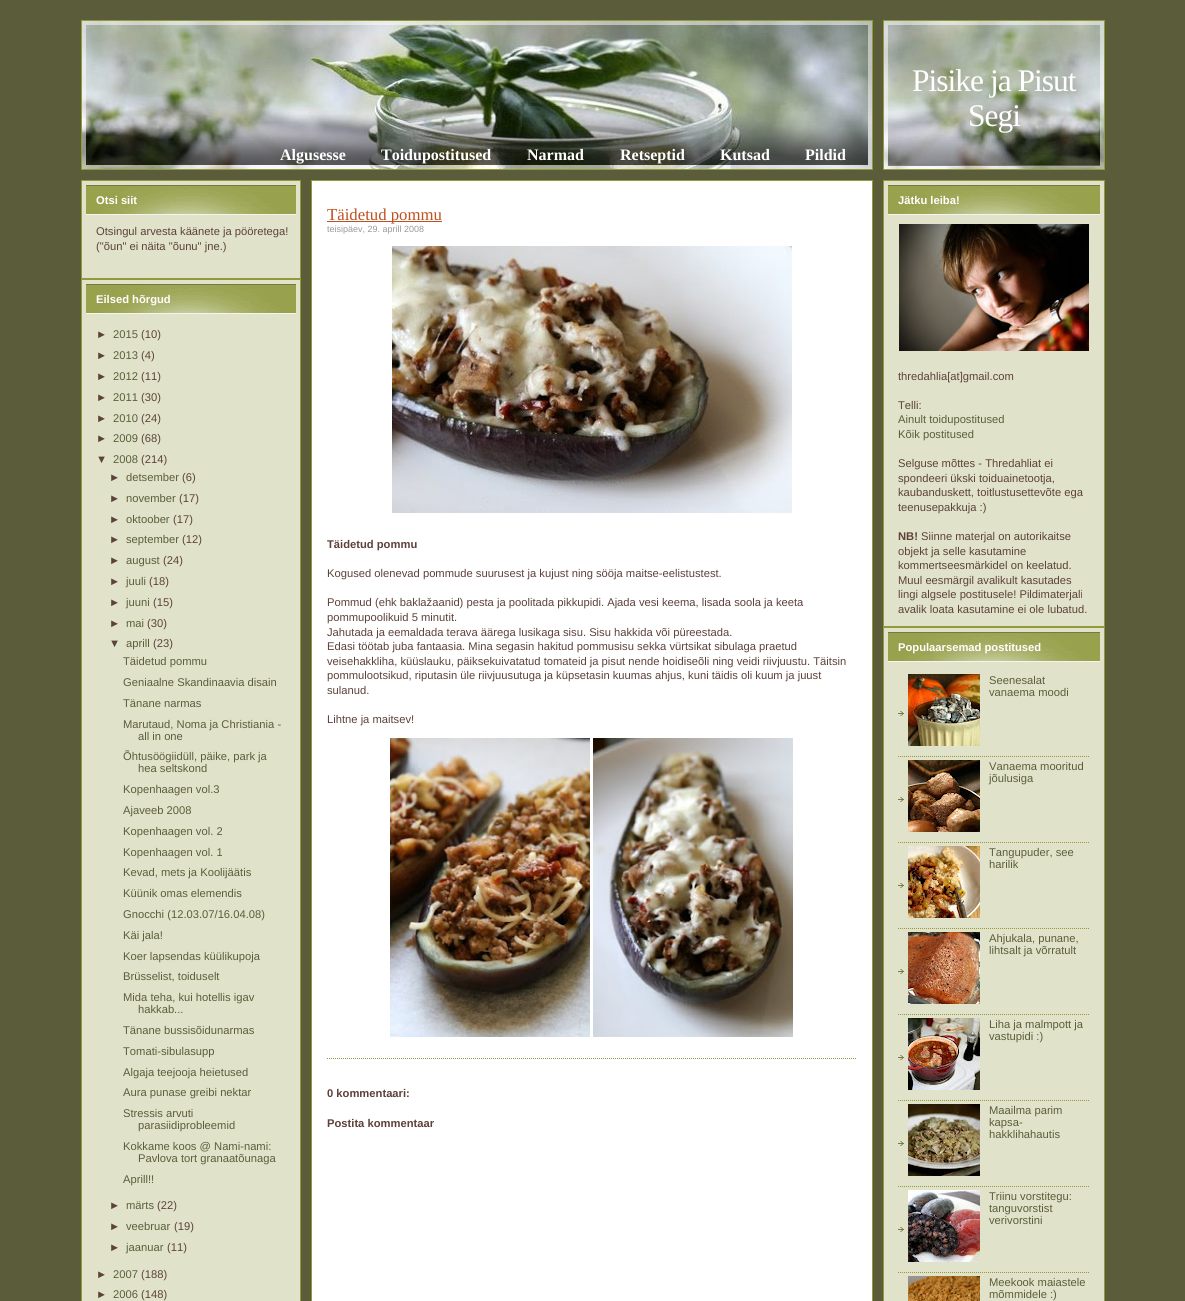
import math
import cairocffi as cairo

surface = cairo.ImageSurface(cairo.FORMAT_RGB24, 1185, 1301)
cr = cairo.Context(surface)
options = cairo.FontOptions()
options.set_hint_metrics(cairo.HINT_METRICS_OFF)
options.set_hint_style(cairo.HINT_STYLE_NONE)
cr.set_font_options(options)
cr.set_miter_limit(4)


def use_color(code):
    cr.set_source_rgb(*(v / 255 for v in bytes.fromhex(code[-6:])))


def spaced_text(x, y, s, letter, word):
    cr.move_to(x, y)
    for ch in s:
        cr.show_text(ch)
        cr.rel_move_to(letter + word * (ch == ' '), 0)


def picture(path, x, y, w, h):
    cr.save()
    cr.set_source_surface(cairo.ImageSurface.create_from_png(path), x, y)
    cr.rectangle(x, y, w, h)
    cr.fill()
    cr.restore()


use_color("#5b5d3a")
cr.paint()
picture("img1.png", 884, 21, 220, 148)
cr.rectangle(883.5, 20.5, 221, 149)
use_color("#939a3c")
cr.set_line_width(1)
cr.stroke()
cr.select_font_face("Liberation Serif")
cr.set_font_size(31.5)
use_color("#ffffff")
spaced_text(912, 91, "Pisike ja Pisut", -1, 0)
spaced_text(968, 126, "Segi", -1, 0)
picture("img2.png", 82, 21, 790, 148)
cr.rectangle(81.5, 20.5, 791, 149)
use_color("#939a3c")
cr.stroke()
cr.select_font_face("Liberation Serif", cairo.FONT_SLANT_NORMAL, cairo.FONT_WEIGHT_BOLD)
cr.set_font_size(16)
use_color("#ffffff")
cr.move_to(280, 160)
cr.show_text("Algusesse")
cr.move_to(381, 160)
cr.show_text("Toidupostitused")
cr.move_to(527, 160)
cr.show_text("Narmad")
cr.move_to(620, 160)
cr.show_text("Retseptid")
cr.move_to(720, 160)
cr.show_text("Kutsad")
cr.move_to(805, 160)
cr.show_text("Pildid")
use_color("#e0e3c9")
cr.rectangle(81.5, 180.5, 219, 98)
cr.fill_preserve()
use_color("#939a3c")
cr.stroke()
use_color("#98a24d")
cr.rectangle(86, 186, 210, 28)
cr.fill()
picture("img3.png", 100, 186, 182, 28)
use_color("#737947")
cr.rectangle(86, 185, 210, 1)
cr.fill()
use_color("#f4f5ec")
cr.rectangle(86, 214, 210, 1)
cr.fill()
cr.select_font_face("Liberation Sans", cairo.FONT_SLANT_NORMAL, cairo.FONT_WEIGHT_BOLD)
cr.set_font_size(11.2)
use_color("#ffffff")
cr.move_to(96, 204)
cr.show_text("Otsi siit")
cr.select_font_face("Liberation Sans")
use_color("#5d413a")
cr.move_to(96, 235)
cr.show_text("Otsingul arvesta käänete ja pööretega!")
cr.move_to(96, 250)
cr.show_text("(\"õun\" ei näita \"õunu\" jne.)")
use_color("#e0e3c9")
cr.rectangle(81.5, 279.5, 219, 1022)
cr.fill_preserve()
use_color("#939a3c")
cr.stroke()
use_color("#98a24d")
cr.rectangle(86, 285, 210, 28)
cr.fill()
picture("img3.png", 100, 285, 182, 28)
use_color("#737947")
cr.rectangle(86, 284, 210, 1)
cr.fill()
use_color("#f4f5ec")
cr.rectangle(86, 313, 210, 1)
cr.fill()
cr.select_font_face("Liberation Sans", cairo.FONT_SLANT_NORMAL, cairo.FONT_WEIGHT_BOLD)
use_color("#ffffff")
cr.move_to(96, 303)
cr.show_text("Eilsed hõrgud")
cr.select_font_face("Liberation Sans")
use_color("#5d413a")
cr.move_to(96, 338)
cr.show_text("►")
use_color("#5b5d3a")
cr.move_to(113, 338)
cr.show_text("2015")
use_color("#5d413a")
cr.move_to(141, 338)
cr.show_text("(10)")
cr.move_to(96, 359)
cr.show_text("►")
use_color("#5b5d3a")
cr.move_to(113, 359)
cr.show_text("2013")
use_color("#5d413a")
cr.move_to(141, 359)
cr.show_text("(4)")
cr.move_to(96, 380)
cr.show_text("►")
use_color("#5b5d3a")
cr.move_to(113, 380)
cr.show_text("2012")
use_color("#5d413a")
cr.move_to(141, 380)
cr.show_text("(11)")
cr.move_to(96, 401)
cr.show_text("►")
use_color("#5b5d3a")
cr.move_to(113, 401)
cr.show_text("2011")
use_color("#5d413a")
cr.move_to(141, 401)
cr.show_text("(30)")
cr.move_to(96, 422)
cr.show_text("►")
use_color("#5b5d3a")
cr.move_to(113, 422)
cr.show_text("2010")
use_color("#5d413a")
cr.move_to(141, 422)
cr.show_text("(24)")
cr.move_to(96, 442)
cr.show_text("►")
use_color("#5b5d3a")
cr.move_to(113, 442)
cr.show_text("2009")
use_color("#5d413a")
cr.move_to(141, 442)
cr.show_text("(68)")
cr.move_to(96, 463)
cr.show_text("▼")
use_color("#5b5d3a")
cr.move_to(113, 463)
cr.show_text("2008")
use_color("#5d413a")
cr.move_to(141, 463)
cr.show_text("(214)")
cr.move_to(109, 481)
cr.show_text("►")
use_color("#5b5d3a")
cr.move_to(126, 481)
cr.show_text("detsember")
use_color("#5d413a")
cr.move_to(182, 481)
cr.show_text("(6)")
cr.move_to(109, 502)
cr.show_text("►")
use_color("#5b5d3a")
cr.move_to(126, 502)
cr.show_text("november")
use_color("#5d413a")
cr.move_to(179, 502)
cr.show_text("(17)")
cr.move_to(109, 523)
cr.show_text("►")
use_color("#5b5d3a")
cr.move_to(126, 523)
cr.show_text("oktoober")
use_color("#5d413a")
cr.move_to(173, 523)
cr.show_text("(17)")
cr.move_to(109, 543)
cr.show_text("►")
use_color("#5b5d3a")
cr.move_to(126, 543)
cr.show_text("september")
use_color("#5d413a")
cr.move_to(182, 543)
cr.show_text("(12)")
cr.move_to(109, 564)
cr.show_text("►")
use_color("#5b5d3a")
cr.move_to(126, 564)
cr.show_text("august")
use_color("#5d413a")
cr.move_to(163, 564)
cr.show_text("(24)")
cr.move_to(109, 585)
cr.show_text("►")
use_color("#5b5d3a")
cr.move_to(126, 585)
cr.show_text("juuli")
use_color("#5d413a")
cr.move_to(149, 585)
cr.show_text("(18)")
cr.move_to(109, 606)
cr.show_text("►")
use_color("#5b5d3a")
cr.move_to(126, 606)
cr.show_text("juuni")
use_color("#5d413a")
cr.move_to(153, 606)
cr.show_text("(15)")
cr.move_to(109, 627)
cr.show_text("►")
use_color("#5b5d3a")
cr.move_to(126, 627)
cr.show_text("mai")
use_color("#5d413a")
cr.move_to(147, 627)
cr.show_text("(30)")
cr.move_to(109, 647)
cr.show_text("▼")
use_color("#5b5d3a")
cr.move_to(126, 647)
cr.show_text("aprill")
use_color("#5d413a")
cr.move_to(153, 647)
cr.show_text("(23)")
use_color("#5b5d3a")
cr.move_to(123, 665)
cr.show_text("Täidetud pommu")
cr.move_to(123, 686)
cr.show_text("Geniaalne Skandinaavia disain")
cr.move_to(123, 707)
cr.show_text("Tänane narmas")
cr.move_to(123, 728)
cr.show_text("Marutaud, Noma ja Christiania -")
cr.move_to(138, 740)
cr.show_text("all in one")
cr.move_to(123, 760)
cr.show_text("Õhtusöögiidüll, päike, park ja")
cr.move_to(138, 772)
cr.show_text("hea seltskond")
cr.move_to(123, 793)
cr.show_text("Kopenhaagen vol.3")
cr.move_to(123, 814)
cr.show_text("Ajaveeb 2008")
cr.move_to(123, 835)
cr.show_text("Kopenhaagen vol. 2")
cr.move_to(123, 856)
cr.show_text("Kopenhaagen vol. 1")
cr.move_to(123, 876)
cr.show_text("Kevad, mets ja Koolijäätis")
cr.move_to(123, 897)
cr.show_text("Küünik omas elemendis")
cr.move_to(123, 918)
cr.show_text("Gnocchi (12.03.07/16.04.08)")
cr.move_to(123, 939)
cr.show_text("Käi jala!")
cr.move_to(123, 960)
cr.show_text("Koer lapsendas küülikupoja")
cr.move_to(123, 980)
cr.show_text("Brüsselist, toiduselt")
cr.move_to(123, 1001)
cr.show_text("Mida teha, kui hotellis igav")
cr.move_to(138, 1013)
cr.show_text("hakkab...")
cr.move_to(123, 1034)
cr.show_text("Tänane bussisõidunarmas")
cr.move_to(123, 1055)
cr.show_text("Tomati-sibulasupp")
cr.move_to(123, 1076)
cr.show_text("Algaja teejooja heietused")
cr.move_to(123, 1096)
cr.show_text("Aura punase greibi nektar")
cr.move_to(123, 1117)
cr.show_text("Stressis arvuti")
cr.move_to(138, 1129)
cr.show_text("parasiidiprobleemid")
cr.move_to(123, 1150)
cr.show_text("Kokkame koos @ Nami-nami:")
cr.move_to(138, 1162)
cr.show_text("Pavlova tort granaatõunaga")
cr.move_to(123, 1183)
cr.show_text("Aprill!!")
use_color("#5d413a")
cr.move_to(109, 1209)
cr.show_text("►")
use_color("#5b5d3a")
cr.move_to(126, 1209)
cr.show_text("märts")
use_color("#5d413a")
cr.move_to(157, 1209)
cr.show_text("(22)")
cr.move_to(109, 1230)
cr.show_text("►")
use_color("#5b5d3a")
cr.move_to(126, 1230)
cr.show_text("veebruar")
use_color("#5d413a")
cr.move_to(174, 1230)
cr.show_text("(19)")
cr.move_to(109, 1251)
cr.show_text("►")
use_color("#5b5d3a")
cr.move_to(126, 1251)
cr.show_text("jaanuar")
use_color("#5d413a")
cr.move_to(167, 1251)
cr.show_text("(11)")
cr.move_to(96, 1278)
cr.show_text("►")
use_color("#5b5d3a")
cr.move_to(113, 1278)
cr.show_text("2007")
use_color("#5d413a")
cr.move_to(141, 1278)
cr.show_text("(188)")
cr.move_to(96, 1298)
cr.show_text("►")
use_color("#5b5d3a")
cr.move_to(113, 1298)
cr.show_text("2006")
use_color("#5d413a")
cr.move_to(141, 1298)
cr.show_text("(148)")
use_color("#ffffff")
cr.rectangle(311.5, 180.5, 561, 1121)
cr.fill_preserve()
use_color("#939a3c")
cr.stroke()
use_color("#bd4f21")
cr.rectangle(327, 221, 115, 1)
cr.fill()
cr.select_font_face("Liberation Serif")
cr.set_font_size(16.75)
cr.move_to(327, 220)
cr.show_text("Täidetud pommu")
cr.select_font_face("Liberation Sans")
cr.set_font_size(9)
use_color("#999999")
cr.move_to(327, 232)
cr.show_text("teisipäev, 29. aprill 2008")
picture("img4.png", 392, 246, 400, 267)
cr.select_font_face("Liberation Sans", cairo.FONT_SLANT_NORMAL, cairo.FONT_WEIGHT_BOLD)
cr.set_font_size(11.2)
use_color("#5d413a")
cr.move_to(327, 548)
cr.show_text("Täidetud pommu")
cr.select_font_face("Liberation Sans")
cr.move_to(327, 577)
cr.show_text("Kogused olenevad pommude suurusest ja kujust ning sööja maitse-eelistustest.")
cr.move_to(327, 606)
cr.show_text("Pommud (ehk baklažaanid) pesta ja poolitada pikkupidi. Ajada vesi keema, lisada soola ja keeta")
cr.move_to(327, 621)
cr.show_text("pommupoolikuid 5 minutit.")
cr.move_to(327, 636)
cr.show_text("Jahutada ja eemaldada terava äärega lusikaga sisu. Sisu hakkida või püreestada.")
cr.move_to(327, 650)
cr.show_text("Edasi töötab juba fantaasia. Mina segasin hakitud pommusisu sekka vürtsikat sibulaga praetud")
cr.move_to(327, 665)
cr.show_text("veisehakkliha, küüslauku, päiksekuivatatud tomateid ja pisut nende hoidiseõli ning veidi riivjuustu. Täitsin")
cr.move_to(327, 679)
cr.show_text("pommulootsikud, riputasin üle riivjuusutuga ja küpsetasin kuumas ahjus, kuni täidis oli kuum ja juust")
cr.move_to(327, 694)
cr.show_text("sulanud.")
cr.move_to(327, 723)
cr.show_text("Lihtne ja maitsev!")
picture("img5.png", 390, 738, 200, 299)
picture("img6.png", 593, 738, 200, 299)
cr.new_path()
cr.move_to(327, 1058.5)
cr.line_to(857, 1058.5)
use_color("#939a3c")
cr.set_dash([1, 1])
cr.stroke()
cr.select_font_face("Liberation Sans", cairo.FONT_SLANT_NORMAL, cairo.FONT_WEIGHT_BOLD)
use_color("#5d413a")
cr.move_to(327, 1097)
cr.show_text("0 kommentaari:")
cr.move_to(327, 1127)
cr.show_text("Postita kommentaar")
use_color("#e0e3c9")
cr.rectangle(883.5, 180.5, 221, 446)
cr.fill_preserve()
use_color("#939a3c")
cr.set_dash([])
cr.stroke()
use_color("#98a24d")
cr.rectangle(888, 186, 212, 28)
cr.fill()
picture("img3.png", 903, 186, 182, 28)
use_color("#737947")
cr.rectangle(888, 185, 212, 1)
cr.fill()
use_color("#f4f5ec")
cr.rectangle(888, 214, 212, 1)
cr.fill()
use_color("#ffffff")
cr.move_to(898, 204)
cr.show_text("Jätku leiba!")
picture("img7.png", 899, 224, 190, 127)
cr.select_font_face("Liberation Sans")
use_color("#5d413a")
cr.move_to(898, 380)
cr.show_text("thredahlia[at]gmail.com")
cr.move_to(898, 409)
cr.show_text("Telli:")
use_color("#5b5d3a")
cr.move_to(898, 423)
cr.show_text("Ainult toidupostitused")
cr.move_to(898, 438)
cr.show_text("Kõik postitused")
use_color("#5d413a")
cr.move_to(898, 467)
cr.show_text("Selguse mõttes - Thredahliat ei")
cr.move_to(898, 482)
cr.show_text("spondeeri ükski toiduainetootja,")
cr.move_to(898, 496)
cr.show_text("kaubanduskett, toitlustusettevõte ega")
cr.move_to(898, 511)
cr.show_text("teenusepakkuja :)")
cr.select_font_face("Liberation Sans", cairo.FONT_SLANT_NORMAL, cairo.FONT_WEIGHT_BOLD)
cr.move_to(898, 540)
cr.show_text("NB!")
cr.select_font_face("Liberation Sans")
cr.move_to(921, 540)
cr.show_text("Siinne materjal on autorikaitse")
cr.move_to(898, 555)
cr.show_text("objekt ja selle kasutamine")
cr.move_to(898, 569)
cr.show_text("kommertseesmärkidel on keelatud.")
cr.move_to(898, 584)
cr.show_text("Muul eesmärgil avalikult kasutades")
cr.move_to(898, 598)
cr.show_text("lingi algsele postitusele! Pildimaterjali")
cr.move_to(898, 613)
cr.show_text("avalik loata kasutamine ei ole lubatud.")
use_color("#e0e3c9")
cr.rectangle(883.5, 627.5, 221, 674)
cr.fill_preserve()
use_color("#939a3c")
cr.stroke()
use_color("#98a24d")
cr.rectangle(888, 633, 212, 28)
cr.fill()
picture("img3.png", 903, 633, 182, 28)
use_color("#737947")
cr.rectangle(888, 632, 212, 1)
cr.fill()
use_color("#f4f5ec")
cr.rectangle(888, 661, 212, 1)
cr.fill()
cr.select_font_face("Liberation Sans", cairo.FONT_SLANT_NORMAL, cairo.FONT_WEIGHT_BOLD)
use_color("#ffffff")
cr.move_to(898, 651)
cr.show_text("Populaarsemad postitused")
picture("img8.png", 898, 711, 6, 5)
cr.new_path()
cr.move_to(898, 756.5)
cr.line_to(1090, 756.5)
use_color("#939a3c")
cr.set_dash([1, 1])
cr.stroke()
picture("img9.png", 908, 674, 72, 72)
cr.select_font_face("Liberation Sans")
use_color("#5b5d3a")
cr.move_to(989, 684)
cr.show_text("Seenesalat")
cr.move_to(989, 696)
cr.show_text("vanaema moodi")
picture("img8.png", 898, 797, 6, 5)
cr.new_path()
cr.move_to(898, 842.5)
cr.line_to(1090, 842.5)
use_color("#939a3c")
cr.stroke()
picture("img10.png", 908, 760, 72, 72)
use_color("#5b5d3a")
cr.move_to(989, 770)
cr.show_text("Vanaema mooritud")
cr.move_to(989, 782)
cr.show_text("jõulusiga")
picture("img8.png", 898, 883, 6, 5)
cr.new_path()
cr.move_to(898, 928.5)
cr.line_to(1090, 928.5)
use_color("#939a3c")
cr.stroke()
picture("img11.png", 908, 846, 72, 72)
use_color("#5b5d3a")
cr.move_to(989, 856)
cr.show_text("Tangupuder, see")
cr.move_to(989, 868)
cr.show_text("harilik")
picture("img8.png", 898, 969, 6, 5)
cr.new_path()
cr.move_to(898, 1014.5)
cr.line_to(1090, 1014.5)
use_color("#939a3c")
cr.stroke()
picture("img12.png", 908, 932, 72, 72)
use_color("#5b5d3a")
cr.move_to(989, 942)
cr.show_text("Ahjukala, punane,")
cr.move_to(989, 954)
cr.show_text("lihtsalt ja võrratult")
picture("img8.png", 898, 1055, 6, 5)
cr.new_path()
cr.move_to(898, 1100.5)
cr.line_to(1090, 1100.5)
use_color("#939a3c")
cr.stroke()
picture("img13.png", 908, 1018, 72, 72)
use_color("#5b5d3a")
cr.move_to(989, 1028)
cr.show_text("Liha ja malmpott ja")
cr.move_to(989, 1040)
cr.show_text("vastupidi :)")
picture("img8.png", 898, 1141, 6, 5)
cr.new_path()
cr.move_to(898, 1186.5)
cr.line_to(1090, 1186.5)
use_color("#939a3c")
cr.stroke()
picture("img14.png", 908, 1104, 72, 72)
use_color("#5b5d3a")
cr.move_to(989, 1114)
cr.show_text("Maailma parim")
cr.move_to(989, 1126)
cr.show_text("kapsa-")
cr.move_to(989, 1138)
cr.show_text("hakklihahautis")
picture("img8.png", 898, 1227, 6, 5)
cr.new_path()
cr.move_to(898, 1272.5)
cr.line_to(1090, 1272.5)
use_color("#939a3c")
cr.stroke()
picture("img15.png", 908, 1190, 72, 72)
use_color("#5b5d3a")
cr.move_to(989, 1200)
cr.show_text("Triinu vorstitegu:")
cr.move_to(989, 1212)
cr.show_text("tanguvorstist")
cr.move_to(989, 1224)
cr.show_text("verivorstini")
picture("img16.png", 908, 1276, 72, 25)
cr.move_to(989, 1286)
cr.show_text("Meekook maiastele")
cr.move_to(989, 1298)
cr.show_text("mõmmidele :)")
surface.write_to_png("result.png")
